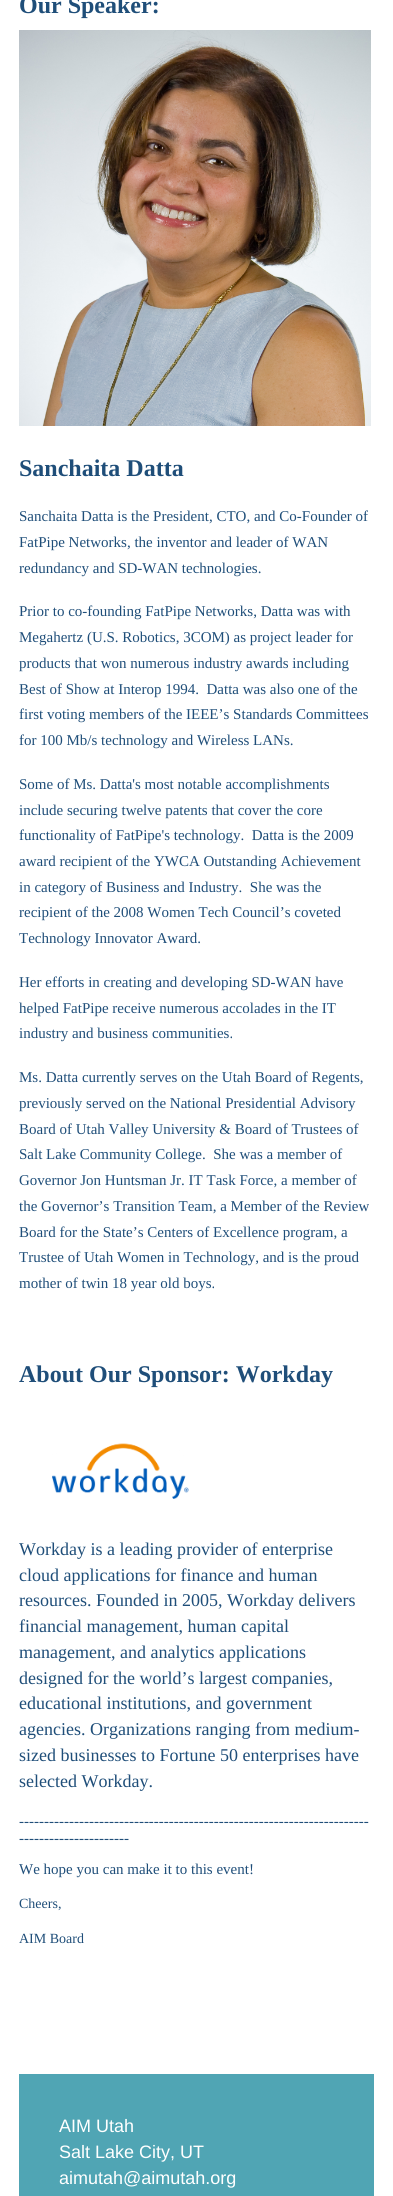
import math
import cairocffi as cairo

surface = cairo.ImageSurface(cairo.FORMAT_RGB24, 393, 2196)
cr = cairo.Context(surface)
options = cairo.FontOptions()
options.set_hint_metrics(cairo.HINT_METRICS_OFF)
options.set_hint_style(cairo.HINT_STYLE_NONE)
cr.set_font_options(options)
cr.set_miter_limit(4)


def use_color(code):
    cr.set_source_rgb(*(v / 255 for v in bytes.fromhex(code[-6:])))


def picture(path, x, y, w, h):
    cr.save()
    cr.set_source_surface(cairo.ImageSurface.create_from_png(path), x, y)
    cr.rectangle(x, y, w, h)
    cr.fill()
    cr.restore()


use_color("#ffffff")
cr.paint()
cr.select_font_face("Liberation Serif", cairo.FONT_SLANT_NORMAL, cairo.FONT_WEIGHT_BOLD)
cr.set_font_size(24)
use_color("#1f4e79")
cr.move_to(19, 13)
cr.show_text("Our Speaker:")
picture("img1.png", 19, 30, 352, 396)
cr.move_to(19, 476)
cr.show_text("Sanchaita Datta")
cr.select_font_face("Liberation Serif")
cr.set_font_size(15)
cr.move_to(19, 521)
cr.show_text("Sanchaita Datta is the President, CTO, and Co-Founder of")
cr.move_to(19, 547)
cr.show_text("FatPipe Networks, the inventor and leader of WAN")
cr.move_to(19, 573)
cr.show_text("redundancy and SD-WAN technologies.")
cr.move_to(19, 616)
cr.show_text("Prior to co-founding FatPipe Networks, Datta was with")
cr.move_to(19, 642)
cr.show_text("Megahertz (U.S. Robotics, 3COM) as project leader for")
cr.move_to(19, 668)
cr.show_text("products that won numerous industry awards including")
cr.move_to(19, 694)
cr.show_text("Best of Show at Interop 1994.  Datta was also one of the")
cr.move_to(19, 719)
cr.show_text("first voting members of the IEEE’s Standards Committees")
cr.move_to(19, 745)
cr.show_text("for 100 Mb/s technology and Wireless LANs.")
cr.move_to(19, 789)
cr.show_text("Some of Ms. Datta's most notable accomplishments")
cr.move_to(19, 815)
cr.show_text("include securing twelve patents that cover the core")
cr.move_to(19, 840)
cr.show_text("functionality of FatPipe's technology.  Datta is the 2009")
cr.move_to(19, 866)
cr.show_text("award recipient of the YWCA Outstanding Achievement")
cr.move_to(19, 892)
cr.show_text("in category of Business and Industry.  She was the")
cr.move_to(19, 917)
cr.show_text("recipient of the 2008 Women Tech Council’s coveted")
cr.move_to(19, 943)
cr.show_text("Technology Innovator Award.")
cr.move_to(19, 987)
cr.show_text("Her efforts in creating and developing SD-WAN have")
cr.move_to(19, 1013)
cr.show_text("helped FatPipe receive numerous accolades in the IT")
cr.move_to(19, 1038)
cr.show_text("industry and business communities.")
cr.move_to(19, 1082)
cr.show_text("Ms. Datta currently serves on the Utah Board of Regents,")
cr.move_to(19, 1108)
cr.show_text("previously served on the National Presidential Advisory")
cr.move_to(19, 1134)
cr.show_text("Board of Utah Valley University & Board of Trustees of")
cr.move_to(19, 1159)
cr.show_text("Salt Lake Community College.  She was a member of")
cr.move_to(19, 1185)
cr.show_text("Governor Jon Huntsman Jr. IT Task Force, a member of")
cr.move_to(19, 1211)
cr.show_text("the Governor’s Transition Team, a Member of the Review")
cr.move_to(19, 1237)
cr.show_text("Board for the State’s Centers of Excellence program, a")
cr.move_to(19, 1262)
cr.show_text("Trustee of Utah Women in Technology, and is the proud")
cr.move_to(19, 1288)
cr.show_text("mother of twin 18 year old boys.")
cr.select_font_face("Liberation Serif", cairo.FONT_SLANT_NORMAL, cairo.FONT_WEIGHT_BOLD)
cr.set_font_size(24)
cr.move_to(19, 1382)
cr.show_text("About Our Sponsor: Workday")
picture("img2.png", 52, 1443, 137, 56)
cr.select_font_face("Liberation Serif")
cr.set_font_size(18)
cr.move_to(19, 1555)
cr.show_text("Workday is a leading provider of enterprise")
cr.move_to(19, 1581)
cr.show_text("cloud applications for finance and human")
cr.move_to(19, 1606)
cr.show_text("resources. Founded in 2005, Workday delivers")
cr.move_to(19, 1632)
cr.show_text("financial management, human capital")
cr.move_to(19, 1658)
cr.show_text("management, and analytics applications")
cr.move_to(19, 1684)
cr.show_text("designed for the world’s largest companies,")
cr.move_to(19, 1709)
cr.show_text("educational institutions, and government")
cr.move_to(19, 1735)
cr.show_text("agencies. Organizations ranging from medium-")
cr.move_to(19, 1761)
cr.show_text("sized businesses to Fortune 50 enterprises have")
cr.move_to(19, 1787)
cr.show_text("selected Workday.")
cr.set_font_size(15)
cr.move_to(19, 1826)
cr.show_text("----------------------------------------------------------------------")
cr.move_to(19, 1843)
cr.show_text("----------------------")
cr.move_to(19, 1874)
cr.show_text("We hope you can make it to this event!")
cr.set_font_size(14)
cr.move_to(19, 1908)
cr.show_text("Cheers,")
cr.move_to(19, 1943)
cr.show_text("AIM Board")
use_color("#50a5b4")
cr.rectangle(19, 2074, 355, 122)
cr.fill()
cr.select_font_face("Liberation Sans")
cr.set_font_size(18)
use_color("#ffffff")
cr.move_to(59, 2132)
cr.show_text("AIM Utah")
cr.move_to(59, 2158)
cr.show_text("Salt Lake City, UT")
cr.move_to(59, 2184)
cr.show_text("aimutah@aimutah.org")
surface.write_to_png("result.png")
